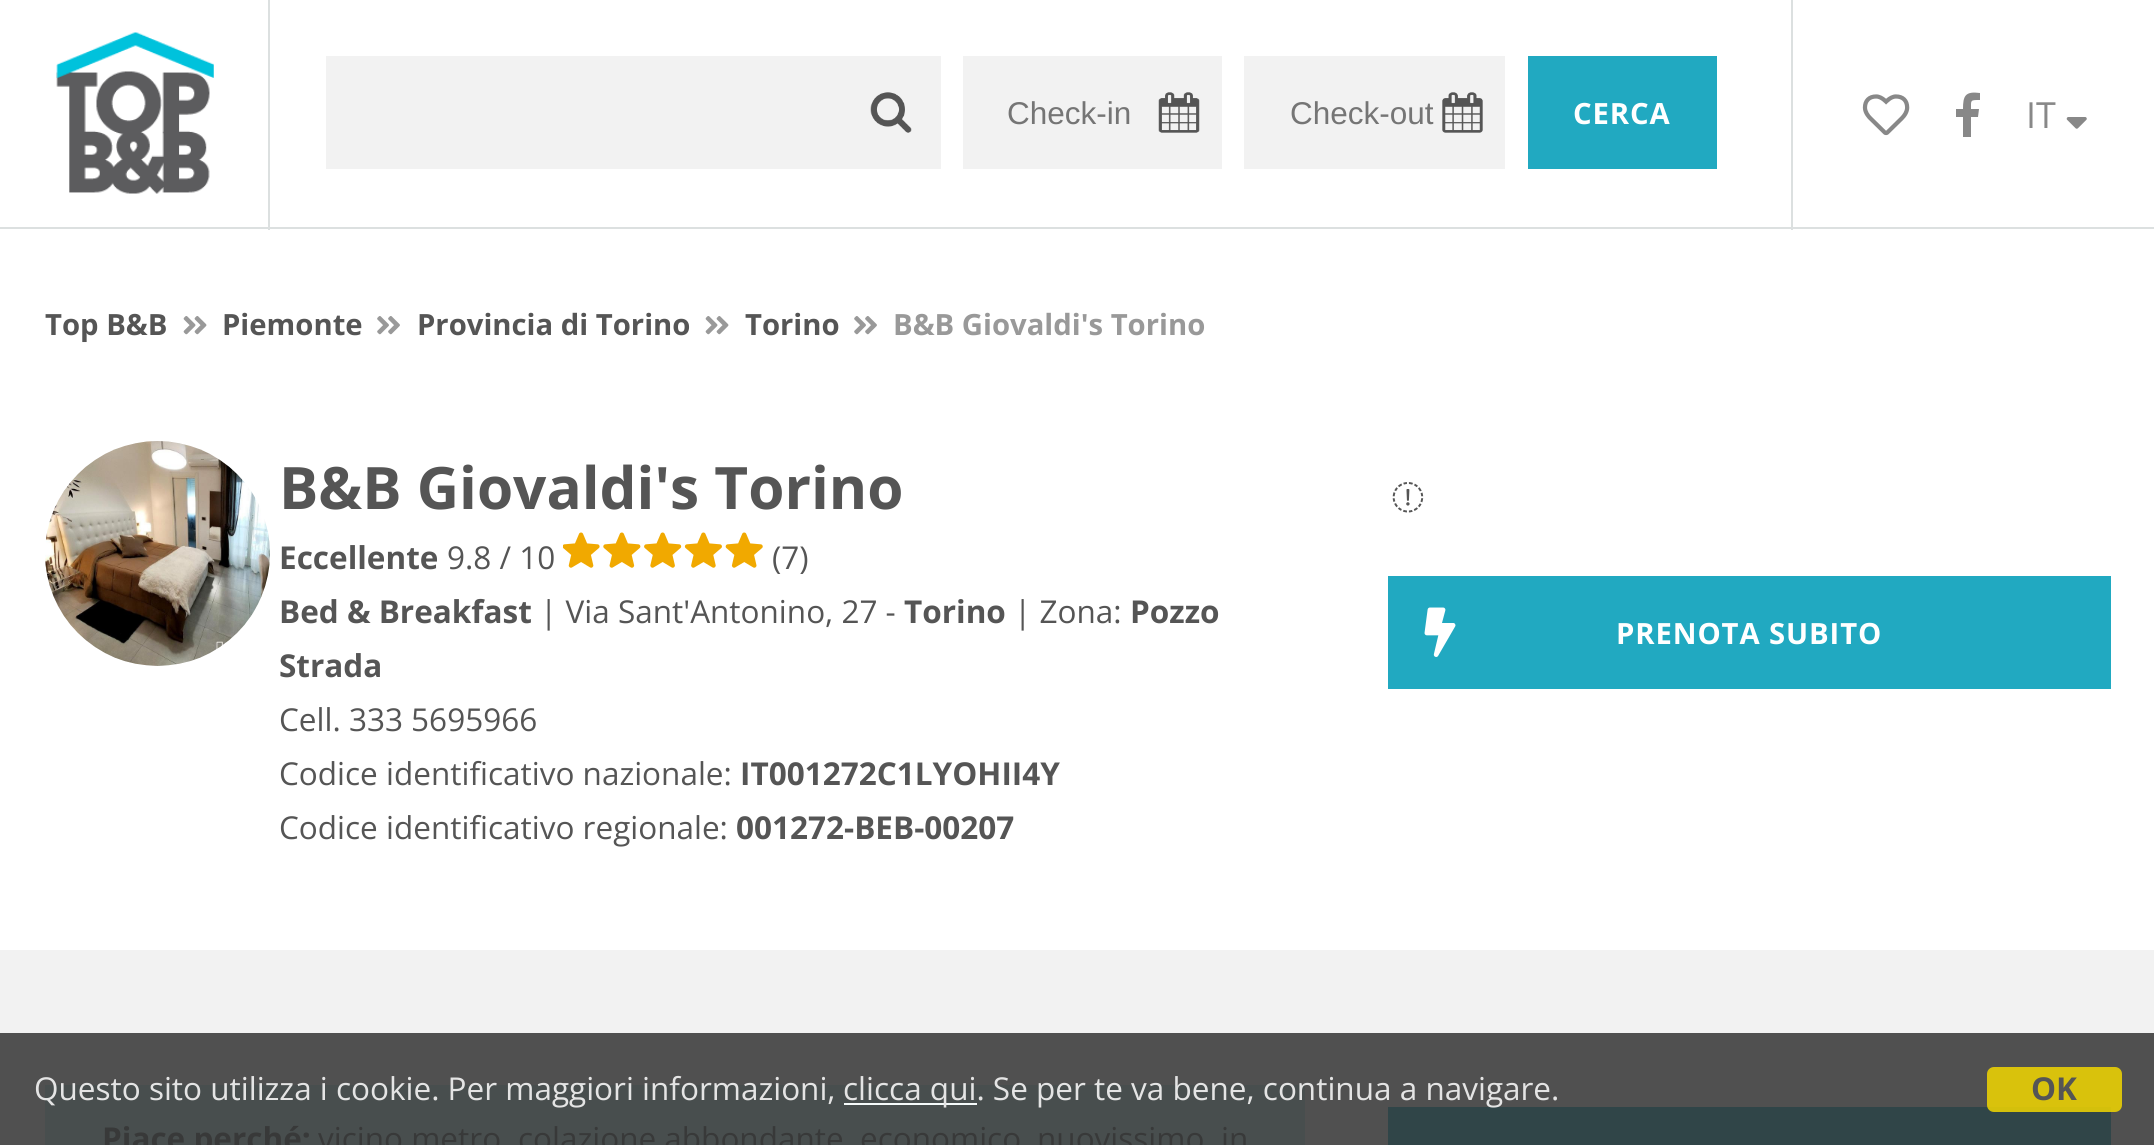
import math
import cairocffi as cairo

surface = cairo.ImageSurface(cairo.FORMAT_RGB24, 2154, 1145)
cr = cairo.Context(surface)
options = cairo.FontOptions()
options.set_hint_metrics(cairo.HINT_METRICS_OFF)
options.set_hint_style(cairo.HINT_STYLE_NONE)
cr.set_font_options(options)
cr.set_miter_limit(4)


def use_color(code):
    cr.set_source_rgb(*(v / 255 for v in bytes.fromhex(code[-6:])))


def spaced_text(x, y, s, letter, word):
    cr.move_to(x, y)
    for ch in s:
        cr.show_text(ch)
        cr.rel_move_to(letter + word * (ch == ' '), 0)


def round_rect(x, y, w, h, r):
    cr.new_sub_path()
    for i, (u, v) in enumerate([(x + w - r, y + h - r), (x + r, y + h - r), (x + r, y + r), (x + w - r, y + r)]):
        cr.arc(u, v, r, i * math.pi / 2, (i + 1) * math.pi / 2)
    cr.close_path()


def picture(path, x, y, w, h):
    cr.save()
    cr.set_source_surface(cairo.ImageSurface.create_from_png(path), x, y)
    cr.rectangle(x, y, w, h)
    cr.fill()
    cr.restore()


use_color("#ffffff")
cr.paint()
use_color("#dce0e0")
cr.rectangle(0, 227, 2154, 2)
cr.fill()
cr.rectangle(268, 0, 2, 230)
cr.fill()
picture("img1.png", 56, 32, 158, 162)
use_color("#f2f2f2")
cr.rectangle(326, 56, 615, 113)
cr.fill()
picture("img2.png", 870, 92, 42, 41)
cr.rectangle(963, 56, 259, 113)
cr.fill()
picture("img3.png", 1158, 92, 42, 41)
cr.select_font_face("Liberation Sans")
cr.set_font_size(31.5)
use_color("#757575")
cr.move_to(1007, 124)
cr.show_text("Check-in")
use_color("#f2f2f2")
cr.rectangle(1244, 56, 261, 113)
cr.fill()
picture("img4.png", 1442, 92, 41, 41)
use_color("#757575")
cr.move_to(1290, 124)
cr.show_text("Check-out")
use_color("#21a9c1")
cr.rectangle(1528, 56, 189, 113)
cr.fill()
cr.select_font_face("Open Sans", cairo.FONT_SLANT_NORMAL, cairo.FONT_WEIGHT_BOLD)
cr.set_font_size(29.25)
use_color("#ffffff")
spaced_text(1573, 124, "CERCA", 0.9, 0)
use_color("#dce0e0")
cr.rectangle(1791, 0, 2, 230)
cr.fill()
picture("img5.png", 1862, 94, 48, 42)
use_color("#888888")
cr.new_path()
cr.move_to(1963, 137)
cr.line_to(1963, 117)
cr.line_to(1956, 117)
cr.line_to(1956, 109)
cr.line_to(1963, 109)
cr.curve_to(1963, 96, 1965, 91, 1980, 93)
cr.line_to(1980, 100)
cr.curve_to(1970, 100, 1971, 100, 1971, 109)
cr.line_to(1979, 109)
cr.line_to(1978, 117)
cr.line_to(1971, 117)
cr.line_to(1971, 137)
cr.fill()
cr.select_font_face("Open Sans")
cr.set_font_size(36)
cr.move_to(2026, 128)
cr.show_text("IT")
picture("img6.png", 2066, 117, 21, 12)
cr.select_font_face("Open Sans", cairo.FONT_SLANT_NORMAL, cairo.FONT_WEIGHT_BOLD)
cr.set_font_size(29.25)
use_color("#555555")
cr.move_to(45, 335)
cr.show_text("Top B&B")
picture("img7.png", 183, 316, 24, 19)
cr.move_to(222, 335)
cr.show_text("Piemonte")
picture("img8.png", 377, 316, 23, 19)
cr.move_to(417, 335)
cr.show_text("Provincia di Torino")
picture("img7.png", 705, 316, 24, 19)
cr.move_to(745, 335)
cr.show_text("Torino")
picture("img8.png", 854, 316, 23, 19)
use_color("#999999")
cr.move_to(893, 335)
cr.show_text("B&B Giovaldi's Torino")
picture("img9.png", 45, 441, 225, 225)
cr.set_font_size(58.5)
use_color("#555555")
cr.move_to(279, 509)
cr.show_text("B&B Giovaldi's Torino")
cr.set_font_size(31.5)
cr.move_to(279, 569)
cr.show_text("Eccellente")
cr.select_font_face("Open Sans")
cr.move_to(447, 569)
cr.show_text("9.8 / 10")
picture("img10.png", 563, 532, 200, 36)
cr.move_to(772, 569)
cr.show_text("(7)")
cr.select_font_face("Open Sans", cairo.FONT_SLANT_NORMAL, cairo.FONT_WEIGHT_BOLD)
cr.move_to(279, 623)
cr.show_text("Bed & Breakfast")
cr.select_font_face("Open Sans")
cr.move_to(540, 623)
cr.show_text("| Via Sant'Antonino, 27 -")
cr.select_font_face("Open Sans", cairo.FONT_SLANT_NORMAL, cairo.FONT_WEIGHT_BOLD)
cr.move_to(904, 623)
cr.show_text("Torino")
cr.select_font_face("Open Sans")
cr.move_to(1014, 623)
cr.show_text("| Zona:")
cr.select_font_face("Open Sans", cairo.FONT_SLANT_NORMAL, cairo.FONT_WEIGHT_BOLD)
cr.move_to(1130, 623)
cr.show_text("Pozzo")
cr.move_to(279, 677)
cr.show_text("Strada")
cr.select_font_face("Open Sans")
cr.move_to(279, 731)
cr.show_text("Cell. 333 5695966")
cr.move_to(279, 785)
cr.show_text("Codice identificativo nazionale:")
cr.select_font_face("Open Sans", cairo.FONT_SLANT_NORMAL, cairo.FONT_WEIGHT_BOLD)
cr.move_to(740, 785)
cr.show_text("IT001272C1LYOHII4Y")
cr.select_font_face("Open Sans")
cr.move_to(279, 839)
cr.show_text("Codice identificativo regionale:")
cr.select_font_face("Open Sans", cairo.FONT_SLANT_NORMAL, cairo.FONT_WEIGHT_BOLD)
cr.move_to(736, 839)
cr.show_text("001272-BEB-00207")
picture("img11.png", 1392, 482, 32, 31)
use_color("#21a9c1")
cr.rectangle(1388, 576, 723, 113)
cr.fill()
picture("img12.png", 1424, 607, 32, 50)
cr.set_font_size(29.25)
use_color("#ffffff")
spaced_text(1616, 644, "PRENOTA SUBITO", 0.9, 0)
use_color("#505050")
cr.rectangle(0, 1033, 2154, 112)
cr.fill()
use_color("#484e4e")
cr.rectangle(45, 1085, 1260, 60)
cr.fill()
cr.select_font_face("Open Sans")
cr.set_font_size(31.5)
use_color("#e4e4e4")
cr.move_to(34, 1100)
cr.show_text("Questo sito utilizza i cookie. Per maggiori informazioni,")
use_color("#f6fbfb")
cr.rectangle(844, 1103, 133, 2)
cr.fill()
use_color("#304548")
cr.rectangle(1388, 1107, 723, 38)
cr.fill()
use_color("#e4e4e4")
cr.move_to(843, 1100)
cr.show_text("clicca qui. Se per te va bene, continua a navigare.")
cr.set_source_rgba(0.945, 0.839, 0, 0.85)
round_rect(1987, 1067, 135, 45, 7)
cr.fill()
cr.select_font_face("Open Sans", cairo.FONT_SLANT_NORMAL, cairo.FONT_WEIGHT_BOLD)
use_color("#555555")
cr.move_to(2031, 1100)
cr.show_text("OK")
use_color("#f2f2f2")
cr.rectangle(0, 950, 2154, 83)
cr.fill()
use_color("#383939")
cr.move_to(102, 1150)
cr.show_text("Piace perché:")
cr.select_font_face("Open Sans")
cr.move_to(318, 1150)
cr.show_text("vicino metro")
cr.move_to(518, 1150)
cr.show_text("colazione abbondante")
cr.move_to(860, 1150)
cr.show_text("economico")
cr.move_to(1037, 1150)
cr.show_text("nuovissimo")
cr.move_to(1221, 1150)
cr.show_text("in")
surface.write_to_png("result.png")
